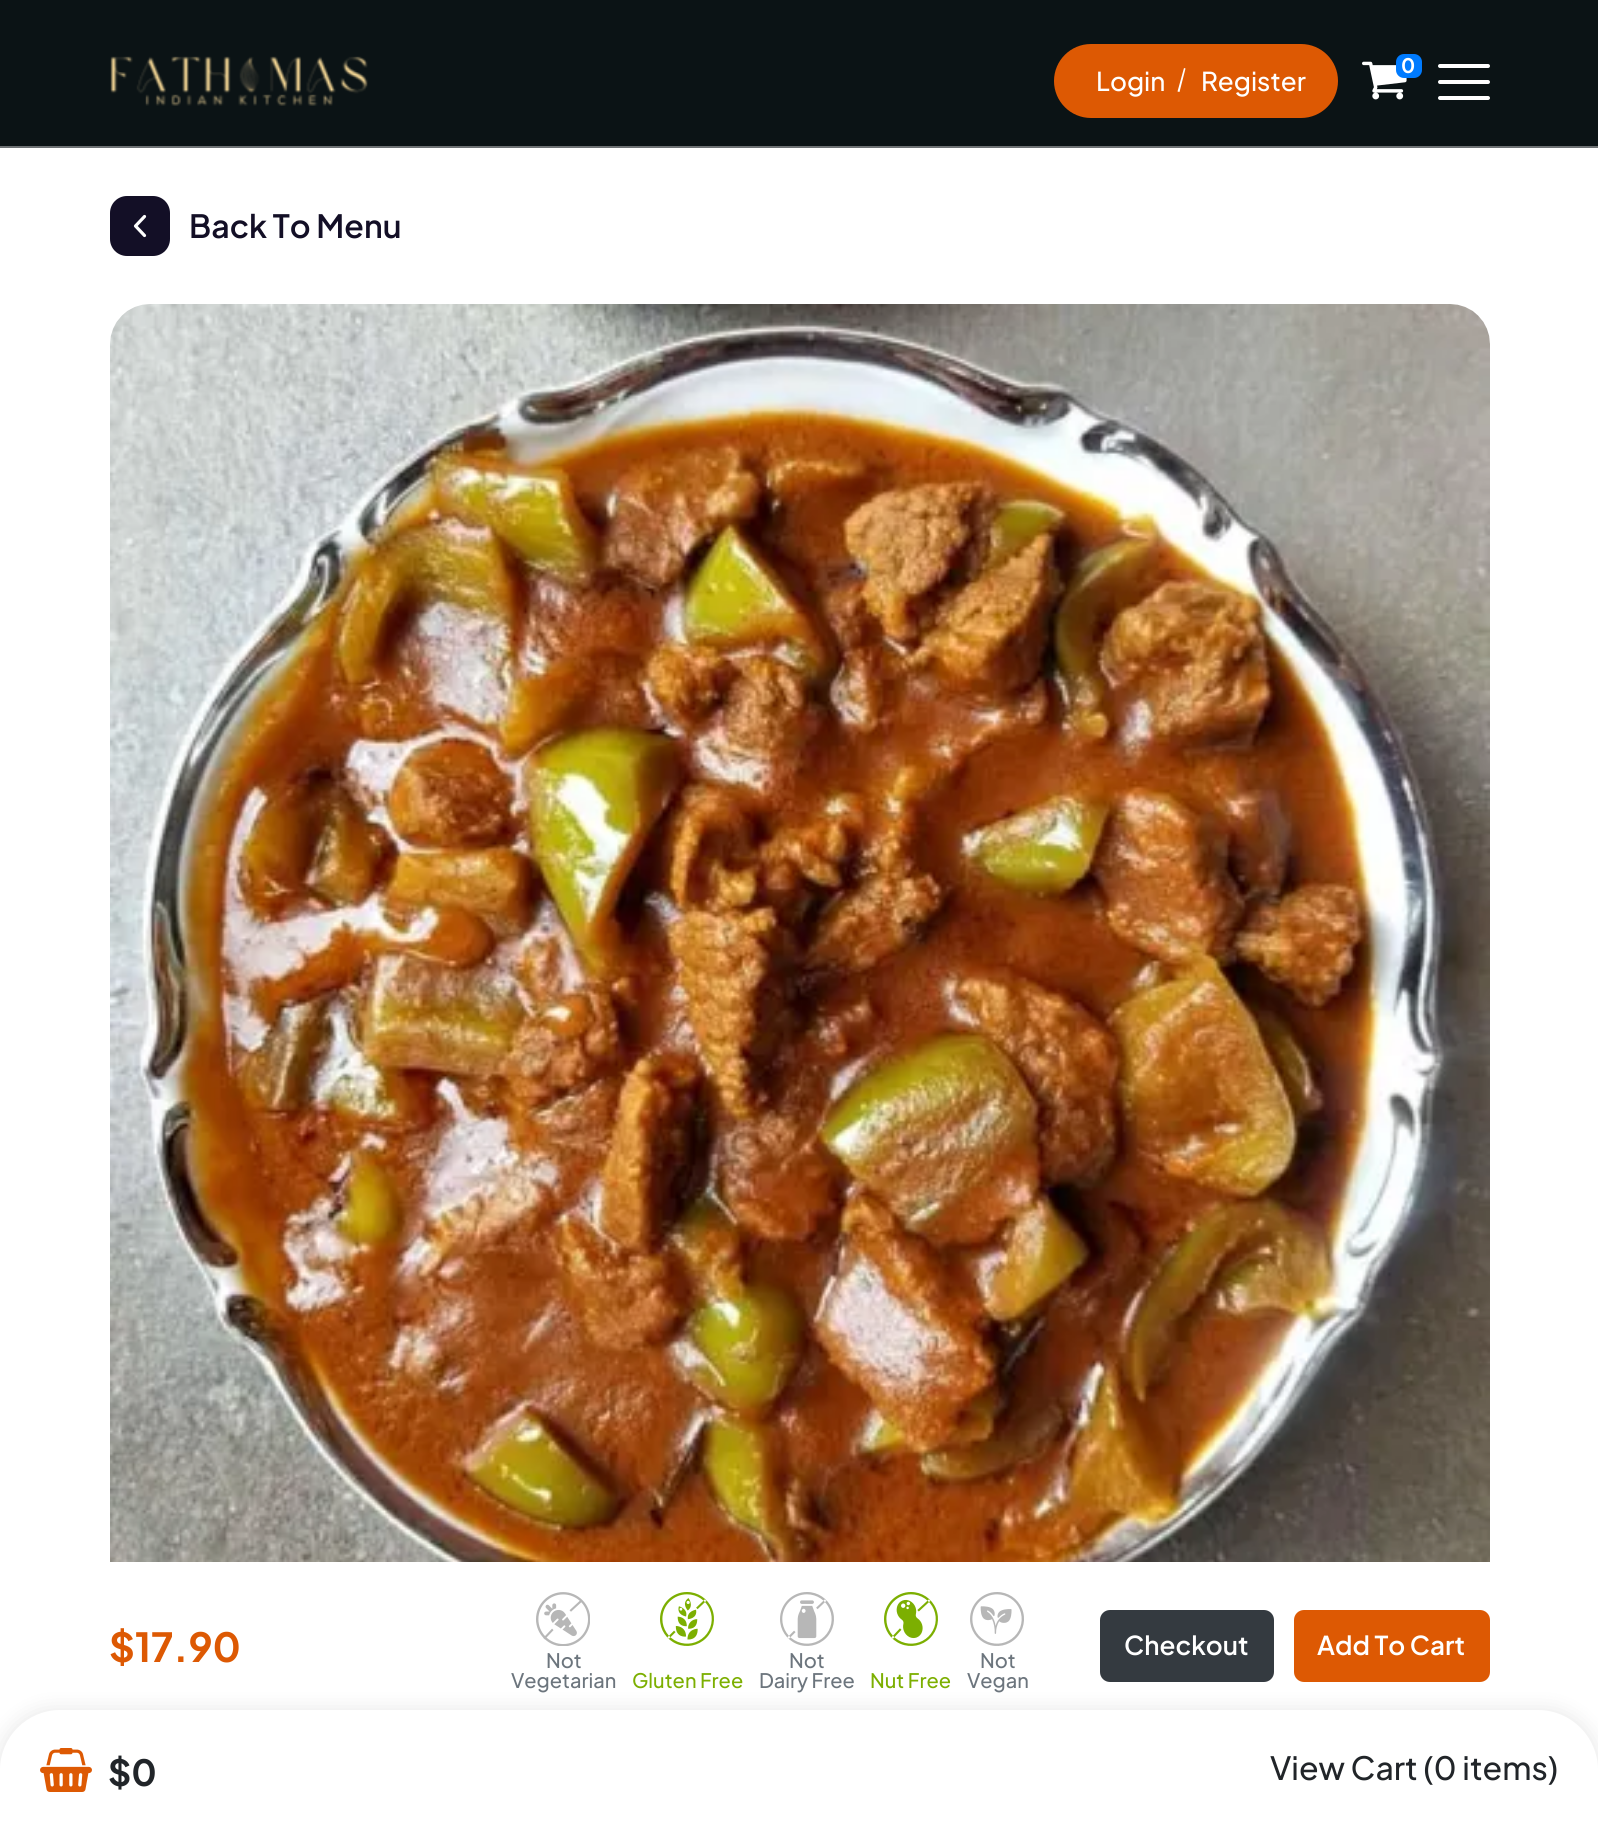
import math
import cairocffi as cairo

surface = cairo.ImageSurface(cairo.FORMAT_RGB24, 1598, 1825)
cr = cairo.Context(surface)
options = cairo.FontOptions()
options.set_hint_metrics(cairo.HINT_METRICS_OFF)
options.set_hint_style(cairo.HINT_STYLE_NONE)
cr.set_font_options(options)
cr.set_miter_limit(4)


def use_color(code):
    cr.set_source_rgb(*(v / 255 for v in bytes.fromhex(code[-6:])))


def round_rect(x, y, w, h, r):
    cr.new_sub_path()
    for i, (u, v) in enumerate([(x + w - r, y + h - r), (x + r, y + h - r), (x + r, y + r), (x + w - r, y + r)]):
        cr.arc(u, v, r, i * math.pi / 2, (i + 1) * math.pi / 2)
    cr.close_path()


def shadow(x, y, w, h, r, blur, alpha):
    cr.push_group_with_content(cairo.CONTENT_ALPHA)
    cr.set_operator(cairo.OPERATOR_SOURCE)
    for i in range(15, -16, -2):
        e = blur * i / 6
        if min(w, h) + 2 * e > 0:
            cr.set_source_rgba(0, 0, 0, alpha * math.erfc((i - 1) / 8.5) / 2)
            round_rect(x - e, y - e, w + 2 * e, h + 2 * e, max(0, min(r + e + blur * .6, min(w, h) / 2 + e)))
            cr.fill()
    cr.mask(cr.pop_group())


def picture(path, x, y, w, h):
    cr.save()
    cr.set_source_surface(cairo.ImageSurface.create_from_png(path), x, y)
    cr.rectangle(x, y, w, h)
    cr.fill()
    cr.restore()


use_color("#ffffff")
cr.paint()
use_color("#0b1315")
cr.rectangle(0, 0, 1598, 146)
cr.fill()
use_color("#6d7173")
cr.rectangle(0, 146, 1598, 2)
cr.fill()
picture("img1.png", 110, 56, 258, 50)
use_color("#dd5903")
round_rect(1054, 44, 284, 74, 37)
cr.fill()
cr.select_font_face("Plus Jakarta Sans Medium")
cr.set_font_size(26)
use_color("#ffffff")
cr.move_to(1096, 91)
cr.show_text("Login")
cr.new_path()
cr.move_to(1184, 68)
cr.line_to(1185.5, 68.5)
cr.line_to(1179.5, 92)
cr.line_to(1177.5, 91.5)
cr.close_path()
cr.fill()
cr.move_to(1201, 91)
cr.show_text("Register")
picture("img2.png", 1362, 61, 45, 39)
use_color("#007bff")
round_rect(1396, 54, 26, 24, 8)
cr.fill()
cr.select_font_face("Plus Jakarta Sans", cairo.FONT_SLANT_NORMAL, cairo.FONT_WEIGHT_BOLD)
cr.set_font_size(20)
use_color("#ffffff")
cr.move_to(1401, 73)
cr.show_text("0")
round_rect(1438, 64, 52, 4, 2)
cr.fill()
round_rect(1438, 80, 52, 4, 2)
cr.fill()
round_rect(1438, 96, 52, 4, 2)
cr.fill()
use_color("#130f26")
round_rect(110, 196, 60, 60, 17)
cr.fill()
cr.new_path()
cr.move_to(144.5, 235.5)
cr.line_to(135.5, 226)
cr.line_to(144.5, 216.5)
use_color("#ffffff")
cr.set_line_width(3.2)
cr.set_line_cap(cairo.LINE_CAP_ROUND)
cr.set_line_join(cairo.LINE_JOIN_ROUND)
cr.stroke()
cr.select_font_face("Plus Jakarta Sans SemiBold")
cr.set_font_size(32)
use_color("#130f26")
cr.move_to(189, 238)
cr.show_text("Back To Menu")
picture("img3.png", 110, 304, 1380, 1258)
cr.select_font_face("Plus Jakarta Sans", cairo.FONT_SLANT_NORMAL, cairo.FONT_WEIGHT_BOLD)
cr.set_font_size(40)
use_color("#dd5903")
cr.move_to(109, 1662)
cr.show_text("$17.90")
use_color("#343a40")
round_rect(1100, 1610, 174, 72, 10)
cr.fill()
cr.select_font_face("Plus Jakarta Sans SemiBold")
cr.set_font_size(26)
use_color("#ffffff")
cr.move_to(1124, 1655)
cr.show_text("Checkout")
use_color("#dd5903")
round_rect(1294, 1610, 196, 72, 10)
cr.fill()
use_color("#ffffff")
cr.move_to(1317, 1655)
cr.show_text("Add To Cart")
picture("img4.png", 536, 1592, 54, 54)
cr.select_font_face("Plus Jakarta Sans Medium")
cr.set_font_size(20)
use_color("#6c757d")
cr.move_to(546, 1668)
cr.show_text("Not")
cr.move_to(511, 1688)
cr.show_text("Vegetarian")
picture("img5.png", 660, 1592, 54, 54)
use_color("#7caf01")
cr.move_to(632, 1688)
cr.show_text("Gluten Free")
picture("img6.png", 780, 1592, 54, 54)
use_color("#6c757d")
cr.move_to(789, 1668)
cr.show_text("Not")
cr.move_to(759, 1688)
cr.show_text("Dairy Free")
picture("img7.png", 884, 1592, 54, 54)
use_color("#7caf01")
cr.move_to(870, 1688)
cr.show_text("Nut Free")
picture("img8.png", 970, 1592, 54, 54)
use_color("#6c757d")
cr.move_to(980, 1668)
cr.show_text("Not")
cr.move_to(967, 1688)
cr.show_text("Vegan")
use_color("#000000")
shadow(0, 1710, 1598, 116, 60, 10, 0.1)
use_color("#ffffff")
cr.new_path()
cr.move_to(60, 1710)
cr.line_to(1538, 1710)
cr.curve_to(1571, 1710, 1598, 1737, 1598, 1770)
cr.line_to(1598, 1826)
cr.line_to(0, 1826)
cr.line_to(0, 1770)
cr.curve_to(0, 1737, 27, 1710, 60, 1710)
cr.close_path()
cr.fill()
picture("img9.png", 40, 1748, 52, 44)
cr.select_font_face("Plus Jakarta Sans", cairo.FONT_SLANT_NORMAL, cairo.FONT_WEIGHT_BOLD)
cr.set_font_size(36)
use_color("#212529")
cr.move_to(108, 1786)
cr.show_text("$0")
cr.select_font_face("Plus Jakarta Sans Medium")
cr.set_font_size(32)
cr.move_to(1270, 1780)
cr.show_text("View Cart (0 items)")
surface.write_to_png("result.png")
